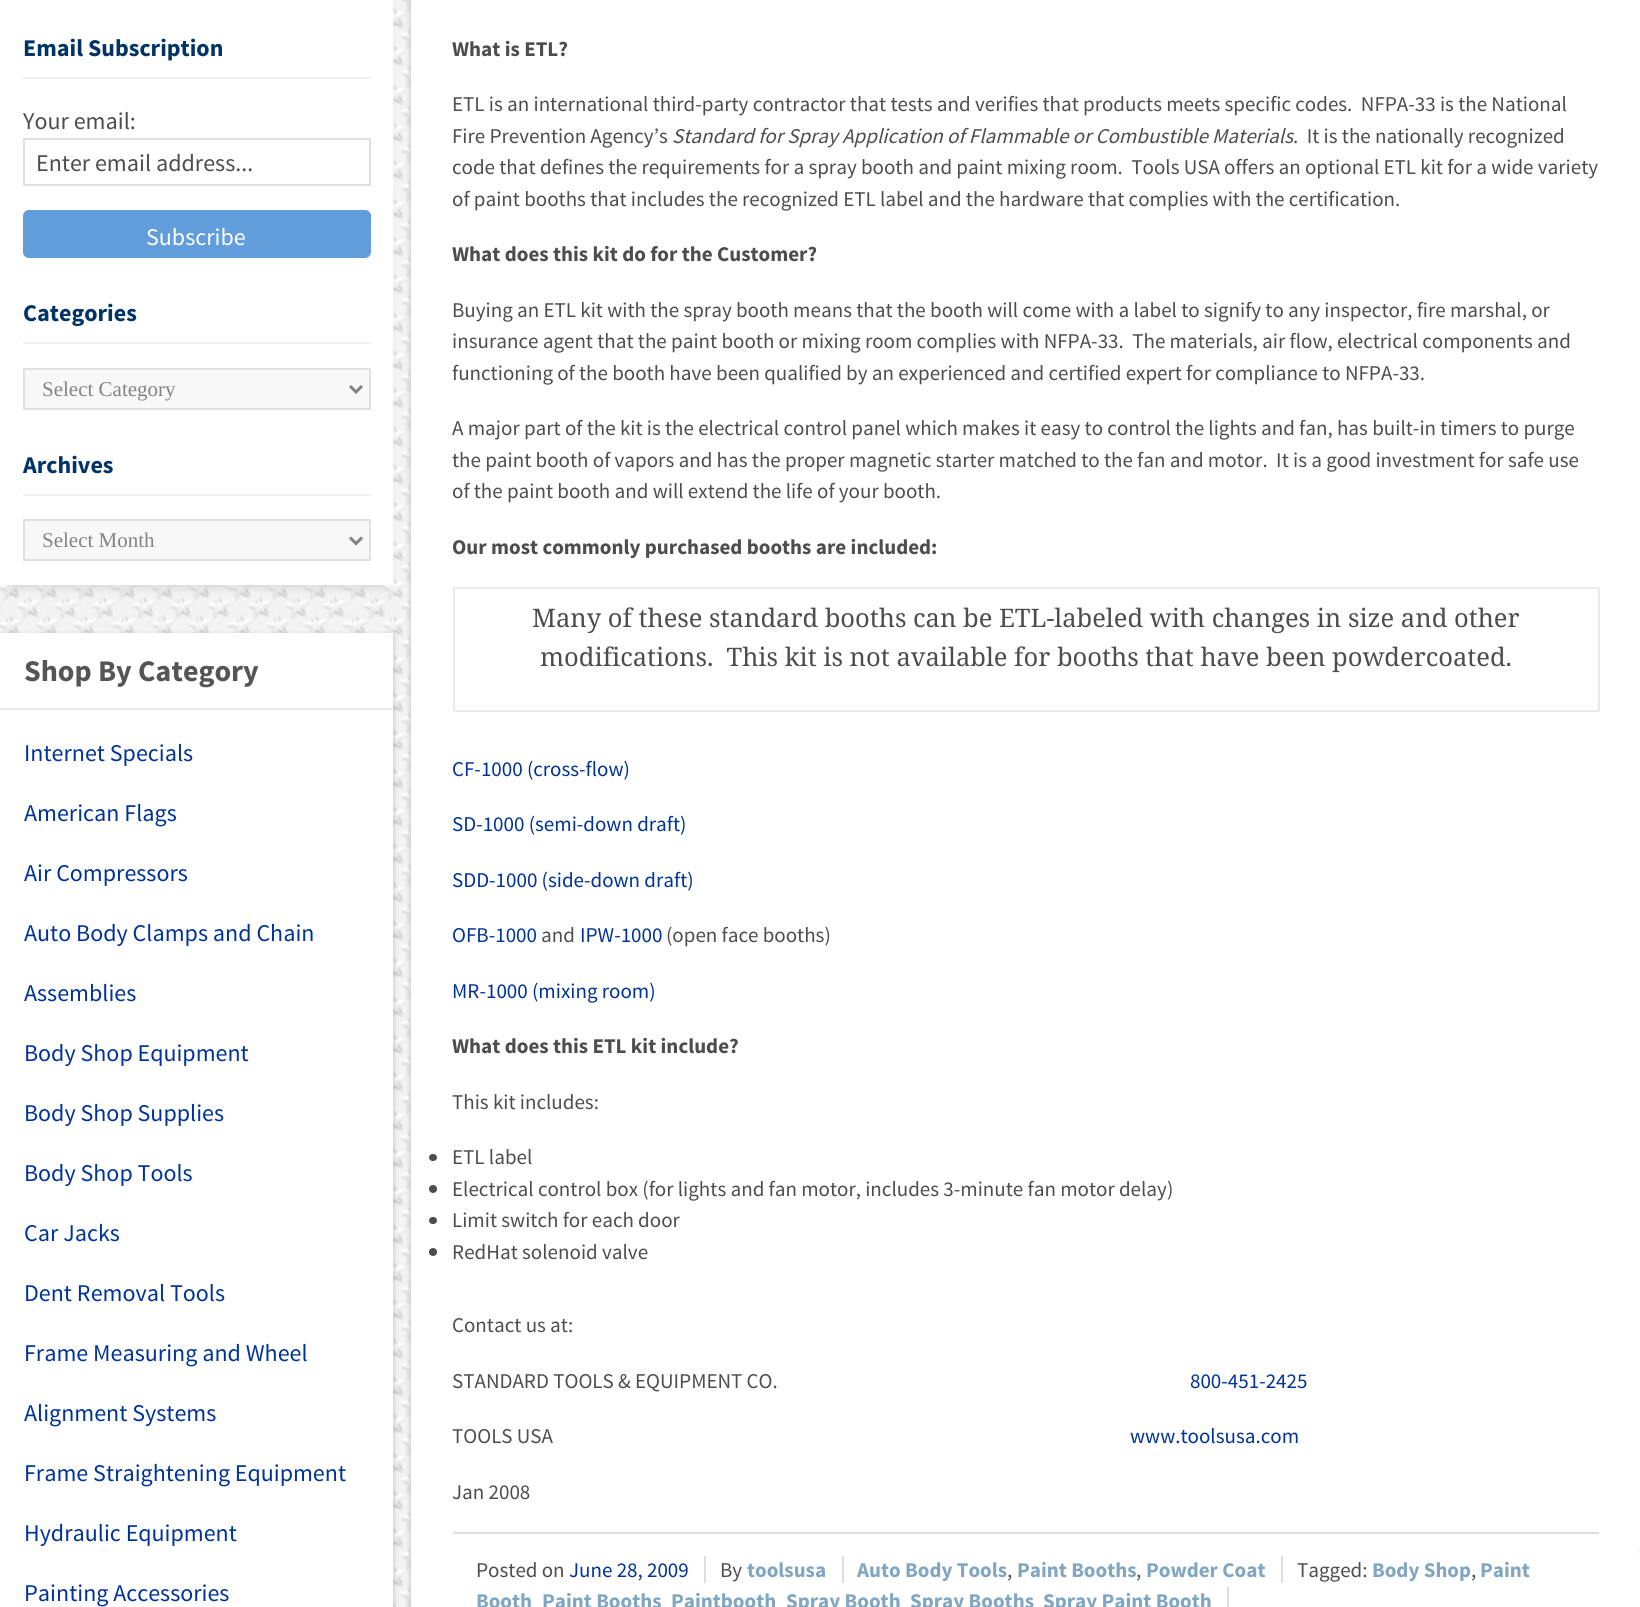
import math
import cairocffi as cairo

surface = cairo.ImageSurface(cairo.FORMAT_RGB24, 1640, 1607)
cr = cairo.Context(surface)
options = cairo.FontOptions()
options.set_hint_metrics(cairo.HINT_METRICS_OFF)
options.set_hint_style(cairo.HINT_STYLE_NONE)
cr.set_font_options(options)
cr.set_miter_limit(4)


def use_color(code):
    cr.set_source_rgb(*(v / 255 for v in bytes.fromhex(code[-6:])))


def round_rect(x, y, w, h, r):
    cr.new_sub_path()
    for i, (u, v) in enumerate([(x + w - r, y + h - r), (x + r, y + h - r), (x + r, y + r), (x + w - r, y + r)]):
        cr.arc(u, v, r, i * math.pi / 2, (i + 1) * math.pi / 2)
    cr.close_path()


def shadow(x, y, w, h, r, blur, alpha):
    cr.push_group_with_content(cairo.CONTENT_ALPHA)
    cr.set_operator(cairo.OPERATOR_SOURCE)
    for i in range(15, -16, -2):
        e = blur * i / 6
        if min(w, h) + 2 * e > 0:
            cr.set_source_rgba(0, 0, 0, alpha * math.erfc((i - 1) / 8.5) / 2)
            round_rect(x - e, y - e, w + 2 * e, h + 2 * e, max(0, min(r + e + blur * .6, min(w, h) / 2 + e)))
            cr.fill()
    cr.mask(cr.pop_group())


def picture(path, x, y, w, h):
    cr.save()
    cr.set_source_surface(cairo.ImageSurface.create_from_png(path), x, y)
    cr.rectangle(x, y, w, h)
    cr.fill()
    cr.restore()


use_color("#ffffff")
cr.paint()
picture("img1.png", 0, 0, 411, 1607)
use_color("#000000")
shadow(9, -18, 375, 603, 0, 6, 0.2)
use_color("#ffffff")
cr.rectangle(0, 0, 393, 585)
cr.fill()
use_color("#eff1f2")
cr.rectangle(23, 77, 348, 2)
cr.fill()
cr.select_font_face("Source Sans Pro", cairo.FONT_SLANT_NORMAL, cairo.FONT_WEIGHT_BOLD)
cr.set_font_size(24)
use_color("#003366")
cr.move_to(23, 56)
cr.show_text("Email Subscription")
cr.select_font_face("Source Sans Pro")
use_color("#4d4d4d")
cr.move_to(23, 129)
cr.show_text("Your email:")
cr.rectangle(24, 139, 346, 46)
use_color("#dfe1e1")
cr.stroke()
use_color("#4d4d4d")
cr.move_to(36, 171)
cr.show_text("Enter email address...")
use_color("#619cdb")
round_rect(23, 210, 348, 48, 6)
cr.fill()
use_color("#ffffff")
cr.move_to(146, 245)
cr.show_text("Subscribe")
use_color("#eff1f2")
cr.rectangle(23, 342, 348, 2)
cr.fill()
cr.select_font_face("Source Sans Pro", cairo.FONT_SLANT_NORMAL, cairo.FONT_WEIGHT_BOLD)
use_color("#003366")
cr.move_to(23, 321)
cr.show_text("Categories")
use_color("#f8f8f8")
cr.rectangle(24, 369, 346, 40)
cr.fill_preserve()
use_color("#dfe1e1")
cr.stroke()
cr.new_path()
cr.move_to(350, 386)
cr.line_to(356, 392)
cr.line_to(362, 386)
use_color("#838383")
cr.set_line_width(3)
cr.stroke()
cr.select_font_face("Liberation Serif")
cr.set_font_size(21)
cr.move_to(42, 396)
cr.show_text("Select Category")
use_color("#eff1f2")
cr.rectangle(23, 494, 348, 2)
cr.fill()
cr.select_font_face("Source Sans Pro", cairo.FONT_SLANT_NORMAL, cairo.FONT_WEIGHT_BOLD)
cr.set_font_size(24)
use_color("#003366")
cr.move_to(23, 473)
cr.show_text("Archives")
use_color("#f8f8f8")
cr.rectangle(24, 520, 346, 40)
cr.fill_preserve()
use_color("#dfe1e1")
cr.set_line_width(2)
cr.stroke()
cr.new_path()
cr.move_to(350, 537.5)
cr.line_to(356, 543.5)
cr.line_to(362, 537.5)
use_color("#838383")
cr.set_line_width(3)
cr.stroke()
cr.select_font_face("Liberation Serif")
cr.set_font_size(21)
cr.move_to(42, 547)
cr.show_text("Select Month")
use_color("#333333")
shadow(411, -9, 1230, 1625, 0, 3, 0.3)
use_color("#ffffff")
cr.rectangle(411, 0, 1229, 1607)
cr.fill()
cr.select_font_face("Source Sans Pro", cairo.FONT_SLANT_NORMAL, cairo.FONT_WEIGHT_BOLD)
use_color("#4d4d4d")
cr.move_to(452, 56)
cr.show_text("What is ETL?")
cr.select_font_face("Source Sans Pro")
cr.move_to(452, 111)
cr.show_text("ETL is an international third-party contractor that tests and verifies that products meets specific codes.  NFPA-33 is the National")
cr.move_to(452, 143)
cr.show_text("Fire Prevention Agency’s")
cr.select_font_face("Source Sans Pro", cairo.FONT_SLANT_ITALIC)
cr.move_to(672, 143)
cr.show_text("Standard for Spray Application of Flammable or Combustible Materials")
cr.select_font_face("Source Sans Pro")
cr.move_to(1293, 143)
cr.show_text(".  It is the nationally recognized")
cr.move_to(452, 174)
cr.show_text("code that defines the requirements for a spray booth and paint mixing room.  Tools USA offers an optional ETL kit for a wide variety")
cr.move_to(452, 206)
cr.show_text("of paint booths that includes the recognized ETL label and the hardware that complies with the certification.")
cr.select_font_face("Source Sans Pro", cairo.FONT_SLANT_NORMAL, cairo.FONT_WEIGHT_BOLD)
cr.move_to(452, 261)
cr.show_text("What does this kit do for the Customer?")
cr.select_font_face("Source Sans Pro")
cr.move_to(452, 317)
cr.show_text("Buying an ETL kit with the spray booth means that the booth will come with a label to signify to any inspector, fire marshal, or")
cr.move_to(452, 348)
cr.show_text("insurance agent that the paint booth or mixing room complies with NFPA-33.  The materials, air flow, electrical components and")
cr.move_to(452, 380)
cr.show_text("functioning of the booth have been qualified by an experienced and certified expert for compliance to NFPA-33.")
cr.move_to(452, 435)
cr.show_text("A major part of the kit is the electrical control panel which makes it easy to control the lights and fan, has built-in timers to purge")
cr.move_to(452, 467)
cr.show_text("the paint booth of vapors and has the proper magnetic starter matched to the fan and motor.  It is a good investment for safe use")
cr.move_to(452, 498)
cr.show_text("of the paint booth and will extend the life of your booth.")
cr.select_font_face("Source Sans Pro", cairo.FONT_SLANT_NORMAL, cairo.FONT_WEIGHT_BOLD)
cr.move_to(452, 554)
cr.show_text("Our most commonly purchased booths are included:")
use_color("#eaeaea")
cr.rectangle(453, 587, 1146, 2)
cr.fill()
cr.rectangle(453, 587, 2, 124)
cr.fill()
cr.rectangle(1598, 588, 2, 123)
cr.fill()
cr.rectangle(455, 710, 1144, 2)
cr.fill()
cr.select_font_face("Noto Serif")
cr.set_font_size(25.5)
use_color("#4d4d4d")
cr.move_to(532, 627)
cr.show_text("Many of these standard booths can be ETL-labeled with changes in size and other")
cr.move_to(540, 666)
cr.show_text("modifications.  This kit is not available for booths that have been powdercoated.")
cr.select_font_face("Source Sans Pro")
cr.set_font_size(21)
use_color("#003399")
cr.move_to(452, 776)
cr.show_text("CF-1000 (cross-flow)")
cr.move_to(452, 831)
cr.show_text("SD-1000 (semi-down draft)")
cr.move_to(452, 887)
cr.show_text("SDD-1000 (side-down draft)")
cr.move_to(452, 942)
cr.show_text("OFB-1000")
use_color("#4d4d4d")
cr.move_to(541, 942)
cr.show_text("and")
use_color("#003399")
cr.move_to(580, 942)
cr.show_text("IPW-1000")
use_color("#4d4d4d")
cr.move_to(666, 942)
cr.show_text("(open face booths)")
use_color("#003399")
cr.move_to(452, 998)
cr.show_text("MR-1000 (mixing room)")
cr.select_font_face("Source Sans Pro", cairo.FONT_SLANT_NORMAL, cairo.FONT_WEIGHT_BOLD)
use_color("#4d4d4d")
cr.move_to(452, 1053)
cr.show_text("What does this ETL kit include?")
cr.select_font_face("Source Sans Pro")
cr.move_to(452, 1109)
cr.show_text("This kit includes:")
round_rect(429, 1154, 8, 7, 3.5)
cr.fill()
cr.move_to(452, 1164)
cr.show_text("ETL label")
cr.new_path()
cr.arc(433, 1189, 4, 0, 2 * math.pi)
cr.fill()
cr.move_to(452, 1196)
cr.show_text("Electrical control box (for lights and fan motor, includes 3-minute fan motor delay)")
round_rect(429, 1217, 8, 7, 3.5)
cr.fill()
cr.move_to(452, 1227)
cr.show_text("Limit switch for each door")
cr.new_path()
cr.arc(433, 1252, 4, 0, 2 * math.pi)
cr.fill()
cr.move_to(452, 1259)
cr.show_text("RedHat solenoid valve")
cr.move_to(452, 1332)
cr.show_text("Contact us at:")
cr.move_to(452, 1388)
cr.show_text("STANDARD TOOLS & EQUIPMENT CO.")
use_color("#003399")
cr.move_to(1190, 1388)
cr.show_text("800-451-2425")
use_color("#4d4d4d")
cr.move_to(452, 1443)
cr.show_text("TOOLS USA")
use_color("#003399")
cr.move_to(1130, 1443)
cr.show_text("www.toolsusa.com")
use_color("#4d4d4d")
cr.move_to(452, 1499)
cr.show_text("Jan 2008")
use_color("#dedede")
cr.rectangle(453, 1532, 1146, 2)
cr.fill()
use_color("#4d4d4d")
cr.move_to(476, 1577)
cr.show_text("Posted on")
use_color("#003399")
cr.move_to(569, 1577)
cr.show_text("June 28, 2009")
use_color("#dedede")
cr.rectangle(704, 1556, 2, 27)
cr.fill()
use_color("#4d4d4d")
cr.move_to(720, 1577)
cr.show_text("By")
cr.select_font_face("Source Sans Pro", cairo.FONT_SLANT_NORMAL, cairo.FONT_WEIGHT_BOLD)
use_color("#81a6c1")
cr.move_to(747, 1577)
cr.show_text("toolsusa")
use_color("#dedede")
cr.rectangle(842, 1556, 2, 27)
cr.fill()
use_color("#81a6c1")
cr.move_to(857, 1577)
cr.show_text("Auto Body Tools")
cr.select_font_face("Source Sans Pro")
use_color("#4d4d4d")
cr.move_to(1007, 1577)
cr.show_text(",")
cr.select_font_face("Source Sans Pro", cairo.FONT_SLANT_NORMAL, cairo.FONT_WEIGHT_BOLD)
use_color("#81a6c1")
cr.move_to(1017, 1577)
cr.show_text("Paint Booths")
cr.select_font_face("Source Sans Pro")
use_color("#4d4d4d")
cr.move_to(1136, 1577)
cr.show_text(",")
cr.select_font_face("Source Sans Pro", cairo.FONT_SLANT_NORMAL, cairo.FONT_WEIGHT_BOLD)
use_color("#81a6c1")
cr.move_to(1146, 1577)
cr.show_text("Powder Coat")
use_color("#dedede")
cr.rectangle(1281, 1556, 2, 27)
cr.fill()
cr.select_font_face("Source Sans Pro")
use_color("#4d4d4d")
cr.move_to(1297, 1577)
cr.show_text("Tagged:")
cr.select_font_face("Source Sans Pro", cairo.FONT_SLANT_NORMAL, cairo.FONT_WEIGHT_BOLD)
use_color("#81a6c1")
cr.move_to(1372, 1577)
cr.show_text("Body Shop")
cr.select_font_face("Source Sans Pro")
use_color("#4d4d4d")
cr.move_to(1471, 1577)
cr.show_text(",")
cr.select_font_face("Source Sans Pro", cairo.FONT_SLANT_NORMAL, cairo.FONT_WEIGHT_BOLD)
use_color("#81a6c1")
cr.move_to(1480, 1577)
cr.show_text("Paint")
cr.move_to(476, 1608)
cr.show_text("Booth")
cr.move_to(542, 1608)
cr.show_text("Paint Booths")
cr.move_to(671, 1608)
cr.show_text("Paintbooth")
cr.move_to(786, 1608)
cr.show_text("Spray Booth")
cr.move_to(910, 1608)
cr.show_text("Spray Booths")
cr.move_to(1043, 1608)
cr.show_text("Spray Paint Booth")
use_color("#dedede")
cr.rectangle(1227, 1587, 2, 20)
cr.fill()
use_color("#333333")
shadow(0, 636, 393, 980, 0, 3, 0.3)
use_color("#ffffff")
cr.rectangle(0, 633, 393, 974)
cr.fill()
use_color("#e9e9e9")
cr.rectangle(0, 708, 393, 2)
cr.fill()
cr.set_font_size(30)
use_color("#555555")
cr.move_to(24, 681)
cr.show_text("Shop By Category")
cr.select_font_face("Source Sans Pro")
cr.set_font_size(24)
use_color("#003399")
cr.move_to(24, 761)
cr.show_text("Internet Specials")
cr.move_to(24, 821)
cr.show_text("American Flags")
cr.move_to(24, 881)
cr.show_text("Air Compressors")
cr.move_to(24, 941)
cr.show_text("Auto Body Clamps and Chain")
cr.move_to(24, 1001)
cr.show_text("Assemblies")
cr.move_to(24, 1061)
cr.show_text("Body Shop Equipment")
cr.move_to(24, 1121)
cr.show_text("Body Shop Supplies")
cr.move_to(24, 1181)
cr.show_text("Body Shop Tools")
cr.move_to(24, 1241)
cr.show_text("Car Jacks")
cr.move_to(24, 1301)
cr.show_text("Dent Removal Tools")
cr.move_to(24, 1361)
cr.show_text("Frame Measuring and Wheel")
cr.move_to(24, 1421)
cr.show_text("Alignment Systems")
cr.move_to(24, 1481)
cr.show_text("Frame Straightening Equipment")
cr.move_to(24, 1541)
cr.show_text("Hydraulic Equipment")
cr.move_to(24, 1601)
cr.show_text("Painting Accessories")
use_color("#f5f5f5")
cr.rectangle(1638, 1550, 2, 3)
cr.fill()
surface.write_to_png("result.png")
